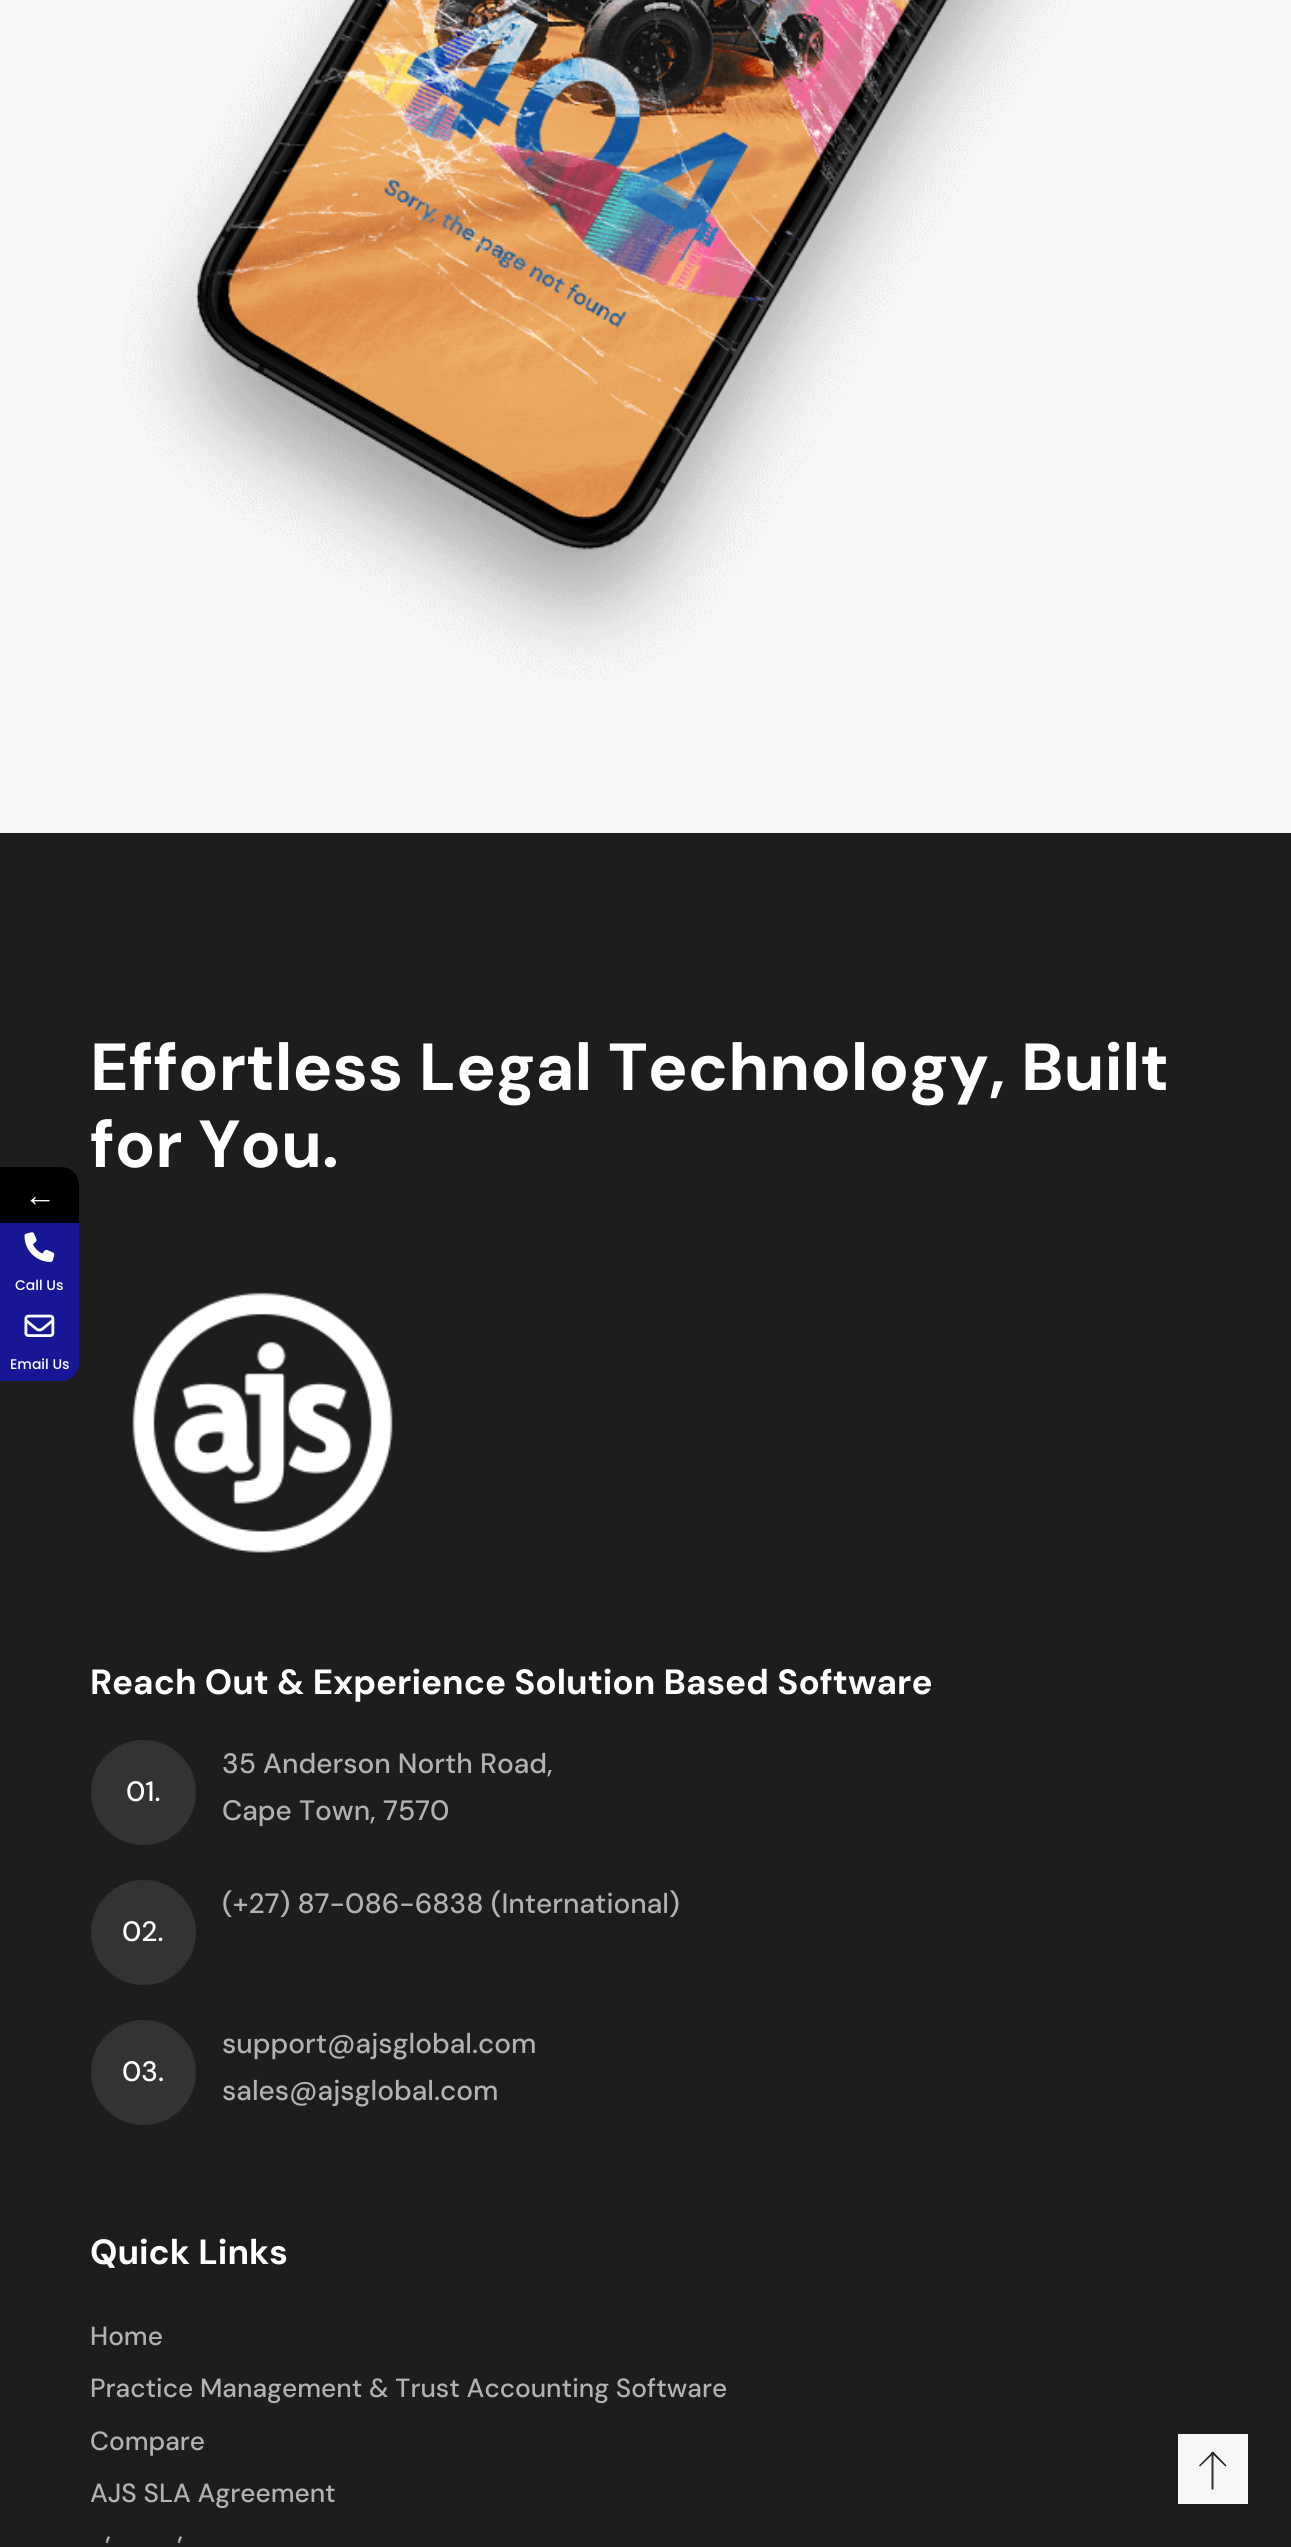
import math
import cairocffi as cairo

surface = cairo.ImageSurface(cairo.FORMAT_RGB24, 1291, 2547)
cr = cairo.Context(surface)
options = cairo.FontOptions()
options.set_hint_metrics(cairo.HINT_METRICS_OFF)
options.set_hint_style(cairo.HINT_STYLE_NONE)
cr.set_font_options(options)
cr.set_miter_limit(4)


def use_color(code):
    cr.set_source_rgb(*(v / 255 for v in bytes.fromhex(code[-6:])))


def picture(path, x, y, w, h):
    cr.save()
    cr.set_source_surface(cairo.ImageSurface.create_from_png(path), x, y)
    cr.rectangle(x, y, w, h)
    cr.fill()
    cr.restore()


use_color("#f7f7f7")
cr.paint()
use_color("#1d1d1f")
cr.rectangle(0, 833, 1291, 1714)
cr.fill()
use_color("#000000")
cr.new_path()
cr.move_to(0, 1167)
cr.line_to(61, 1167)
cr.curve_to(71, 1167, 79, 1175, 79, 1185)
cr.line_to(79, 1223)
cr.line_to(0, 1223)
cr.close_path()
cr.fill()
cr.select_font_face("Liberation Serif")
cr.set_font_size(32)
use_color("#ffffff")
cr.move_to(24, 1206)
cr.show_text("←")
use_color("#171796")
cr.rectangle(0, 1223, 79, 79)
cr.fill()
picture("img1.png", 24, 1232, 31, 30)
cr.select_font_face("Poppins Medium")
cr.set_font_size(14)
use_color("#ffffff")
cr.move_to(15, 1290)
cr.show_text("Call Us")
use_color("#171796")
cr.new_path()
cr.move_to(0, 1302)
cr.line_to(79, 1302)
cr.line_to(79, 1363)
cr.curve_to(79, 1373, 71, 1381, 61, 1381)
cr.line_to(0, 1381)
cr.close_path()
cr.fill()
picture("img2.png", 24, 1314, 31, 23)
use_color("#ffffff")
cr.move_to(10, 1369)
cr.show_text("Email Us")
picture("img3.png", 123, 0, 947, 680)
cr.select_font_face("DM Sans", cairo.FONT_SLANT_NORMAL, cairo.FONT_WEIGHT_BOLD)
cr.set_font_size(66.5)
cr.move_to(90, 1090)
cr.show_text("Effortless Legal Technology, Built")
cr.move_to(90, 1167)
cr.show_text("for You.")
picture("img4.png", 132, 1292, 261, 261)
cr.set_font_size(35)
cr.move_to(90, 1694)
cr.show_text("Reach Out & Experience Solution Based Software")
use_color("#333335")
cr.new_path()
cr.arc(143.5, 1792.5, 52.5, 0, 2 * math.pi)
cr.fill()
cr.select_font_face("DM Sans Medium")
cr.set_font_size(28)
use_color("#ffffff")
cr.move_to(126, 1801)
cr.show_text("01.")
use_color("#b2b2b2")
cr.move_to(222, 1773)
cr.show_text("35 Anderson North Road,")
cr.move_to(222, 1820)
cr.show_text("Cape Town, 7570")
cr.move_to(222, 1913)
cr.show_text("(+27) 87-086-6838 (International)")
use_color("#333335")
cr.new_path()
cr.arc(143.5, 1932.5, 52.5, 0, 2 * math.pi)
cr.fill()
use_color("#ffffff")
cr.move_to(122, 1941)
cr.show_text("02.")
use_color("#333335")
cr.new_path()
cr.arc(143.5, 2072.5, 52.5, 0, 2 * math.pi)
cr.fill()
use_color("#ffffff")
cr.move_to(122, 2081)
cr.show_text("03.")
use_color("#b2b2b2")
cr.move_to(222, 2053)
cr.show_text("support@ajsglobal.com")
cr.move_to(222, 2100)
cr.show_text("sales@ajsglobal.com")
cr.select_font_face("DM Sans", cairo.FONT_SLANT_NORMAL, cairo.FONT_WEIGHT_BOLD)
cr.set_font_size(35)
use_color("#ffffff")
cr.move_to(90, 2264)
cr.show_text("Quick Links")
cr.select_font_face("DM Sans Medium")
cr.set_font_size(26.25)
use_color("#b2b2b2")
cr.move_to(90, 2345)
cr.show_text("Home")
cr.move_to(90, 2397)
cr.show_text("Practice Management & Trust Accounting Software")
cr.move_to(90, 2450)
cr.show_text("Compare")
cr.move_to(90, 2502)
cr.show_text("AJS SLA Agreement")
cr.move_to(105, 2555)
cr.show_text("’")
cr.move_to(177, 2555)
cr.show_text("’")
use_color("#f7f7f7")
cr.rectangle(1178, 2434, 70, 70)
cr.fill()
cr.save()
cr.new_path()
cr.move_to(1199, 2511)
cr.line_to(1199, 2452)
cr.line_to(1227, 2452)
cr.line_to(1227, 2511)
cr.close_path()
cr.clip()
cr.new_path()
cr.move_to(1212, 2489)
cr.line_to(1212, 2430.5)
cr.line_to(1213, 2430.5)
cr.line_to(1213, 2489)
cr.close_path()
use_color("#1d1d1f")
cr.set_line_width(0.9)
cr.stroke()
cr.restore()
use_color("#1d1d1f")
cr.new_path()
cr.move_to(1200, 2466.5)
cr.line_to(1199, 2465.5)
cr.line_to(1213, 2451.5)
cr.line_to(1214, 2453)
cr.close_path()
cr.move_to(1225.5, 2466.5)
cr.line_to(1211.5, 2453)
cr.line_to(1213, 2451.5)
cr.line_to(1226.5, 2465.5)
cr.close_path()
cr.fill()
surface.write_to_png("result.png")
